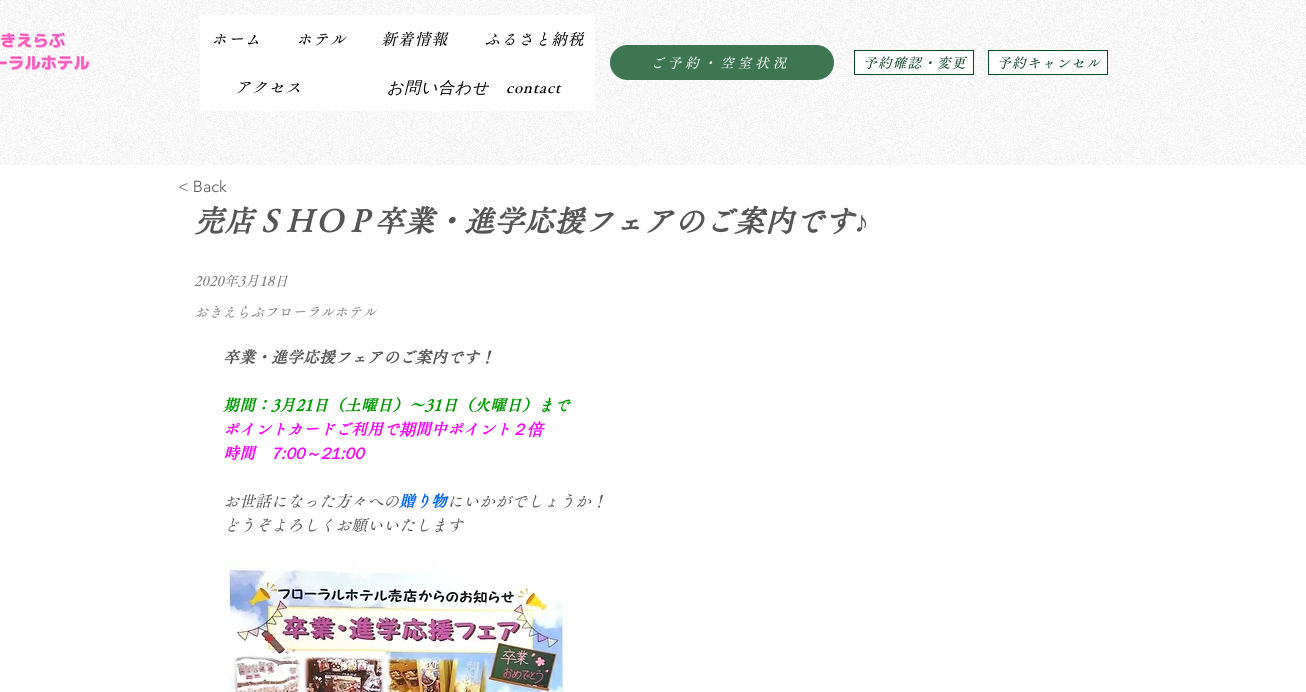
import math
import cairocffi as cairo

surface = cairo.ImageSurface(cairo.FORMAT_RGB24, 1306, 692)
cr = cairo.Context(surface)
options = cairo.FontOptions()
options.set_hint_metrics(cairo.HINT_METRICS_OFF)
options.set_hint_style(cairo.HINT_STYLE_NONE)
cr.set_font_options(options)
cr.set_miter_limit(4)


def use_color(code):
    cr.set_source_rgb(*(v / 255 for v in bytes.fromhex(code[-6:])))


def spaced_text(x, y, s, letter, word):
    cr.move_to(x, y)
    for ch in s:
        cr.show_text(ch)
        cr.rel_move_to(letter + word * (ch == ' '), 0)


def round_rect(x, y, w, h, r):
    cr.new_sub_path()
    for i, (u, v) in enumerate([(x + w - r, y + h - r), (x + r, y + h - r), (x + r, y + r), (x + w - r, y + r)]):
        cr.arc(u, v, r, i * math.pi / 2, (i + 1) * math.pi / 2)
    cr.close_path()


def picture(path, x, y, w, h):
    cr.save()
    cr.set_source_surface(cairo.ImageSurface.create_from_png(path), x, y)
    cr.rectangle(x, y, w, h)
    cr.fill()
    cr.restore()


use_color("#ffffff")
cr.paint()
picture("img1.png", 0, 0, 1306, 165)
picture("img2.png", 0, 32, 90, 39)
use_color("#ffffff")
cr.rectangle(200, 15, 395, 96)
cr.fill()
cr.select_font_face("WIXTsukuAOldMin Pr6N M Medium", cairo.FONT_SLANT_ITALIC)
cr.set_font_size(16)
use_color("#000000")
spaced_text(211, 45, "ホーム", 0.75, 0)
spaced_text(296, 45, "ホテル", 0.75, 0)
spaced_text(381, 45, "新着情報", 0.75, 0)
spaced_text(484, 45, "ふるさと納税", 0.75, 0)
spaced_text(235, 93, "アクセス", 0.75, 0)
cr.select_font_face("WenQuanYi Zen Hei Medium", cairo.FONT_SLANT_ITALIC)
spaced_text(387, 93, "お問い合わせ", 0.75, 0)
cr.select_font_face("WIXTsukuAOldMin Pr6N M Medium", cairo.FONT_SLANT_ITALIC)
spaced_text(506, 93, "contact", 0.75, 0)
use_color("#3f7652")
round_rect(610, 45, 224, 35, 17.5)
cr.fill()
cr.set_font_size(14)
use_color("#ffffff")
spaced_text(650, 68, "ご予約・空室状況", 3.5, 0)
cr.rectangle(854.5, 50.5, 119, 24)
cr.fill_preserve()
use_color("#0c4426")
cr.set_line_width(1)
cr.stroke()
spaced_text(863, 68, "予約確認・変更", 0.75, 0)
use_color("#ffffff")
cr.rectangle(988.5, 50.5, 119, 24)
cr.fill_preserve()
use_color("#0c4426")
cr.stroke()
spaced_text(997, 68, "予約キャンセル", 0.75, 0)
cr.select_font_face("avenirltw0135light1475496 Light")
cr.set_font_size(16)
use_color("#555555")
cr.move_to(178, 192)
cr.show_text("< Back")
cr.select_font_face("WIXTsukuAOldMin Pr6N M", cairo.FONT_SLANT_ITALIC, cairo.FONT_WEIGHT_BOLD)
cr.set_font_size(30)
cr.move_to(194, 232)
cr.show_text("売店ＳＨＯＰ卒業・進学応援フェアのご案内です")
cr.select_font_face("Liberation Serif", cairo.FONT_SLANT_ITALIC, cairo.FONT_WEIGHT_BOLD)
cr.move_to(854, 232)
cr.show_text("♪")
cr.select_font_face("WIXTsukuAOldMin Pr6N M Medium", cairo.FONT_SLANT_ITALIC)
cr.set_font_size(14)
use_color("#808080")
cr.move_to(194, 286)
cr.show_text("2020年3月18日")
cr.move_to(194, 317)
cr.show_text("おきえらぶフローラルホテル")
cr.select_font_face("WIXTsukuAOldMin Pr6N M", cairo.FONT_SLANT_ITALIC, cairo.FONT_WEIGHT_BOLD)
cr.set_font_size(16)
use_color("#555555")
cr.move_to(223, 363)
cr.show_text("卒業・進学応援フェアのご案内です！")
use_color("#009900")
cr.move_to(223, 411)
cr.show_text("期間：3月21日（土曜日）～31日（火曜日）まで")
use_color("#ff00ff")
cr.move_to(223, 435)
cr.show_text("ポイントカードご利用で")
cr.select_font_face("WenQuanYi Zen Hei", cairo.FONT_SLANT_ITALIC, cairo.FONT_WEIGHT_BOLD)
cr.move_to(399, 435)
cr.show_text("期")
cr.select_font_face("WIXTsukuAOldMin Pr6N M", cairo.FONT_SLANT_ITALIC, cairo.FONT_WEIGHT_BOLD)
cr.move_to(415, 435)
cr.show_text("間中ポイント")
cr.select_font_face("WenQuanYi Zen Hei", cairo.FONT_SLANT_ITALIC, cairo.FONT_WEIGHT_BOLD)
cr.move_to(511, 435)
cr.show_text("２倍")
cr.select_font_face("WIXTsukuAOldMin Pr6N M", cairo.FONT_SLANT_ITALIC, cairo.FONT_WEIGHT_BOLD)
cr.move_to(223, 459)
cr.show_text("時間")
cr.select_font_face("WenQuanYi Zen Hei", cairo.FONT_SLANT_ITALIC, cairo.FONT_WEIGHT_BOLD)
cr.move_to(271, 459)
cr.show_text("7:00～21:00")
cr.select_font_face("WIXTsukuAOldMin Pr6N M Medium", cairo.FONT_SLANT_ITALIC)
use_color("#555555")
cr.move_to(223, 507)
cr.show_text("お世話になった方々への")
cr.select_font_face("WIXTsukuAOldMin Pr6N M", cairo.FONT_SLANT_ITALIC, cairo.FONT_WEIGHT_BOLD)
use_color("#0066ff")
cr.move_to(399, 507)
cr.show_text("贈り物")
cr.select_font_face("WIXTsukuAOldMin Pr6N M Medium", cairo.FONT_SLANT_ITALIC)
use_color("#555555")
cr.move_to(447, 507)
cr.show_text("にいかがでしょうか！")
cr.move_to(223, 531)
cr.show_text("どうぞよろしくお願いいたします")
picture("img3.png", 223, 561, 344, 131)
surface.write_to_png("result.png")
